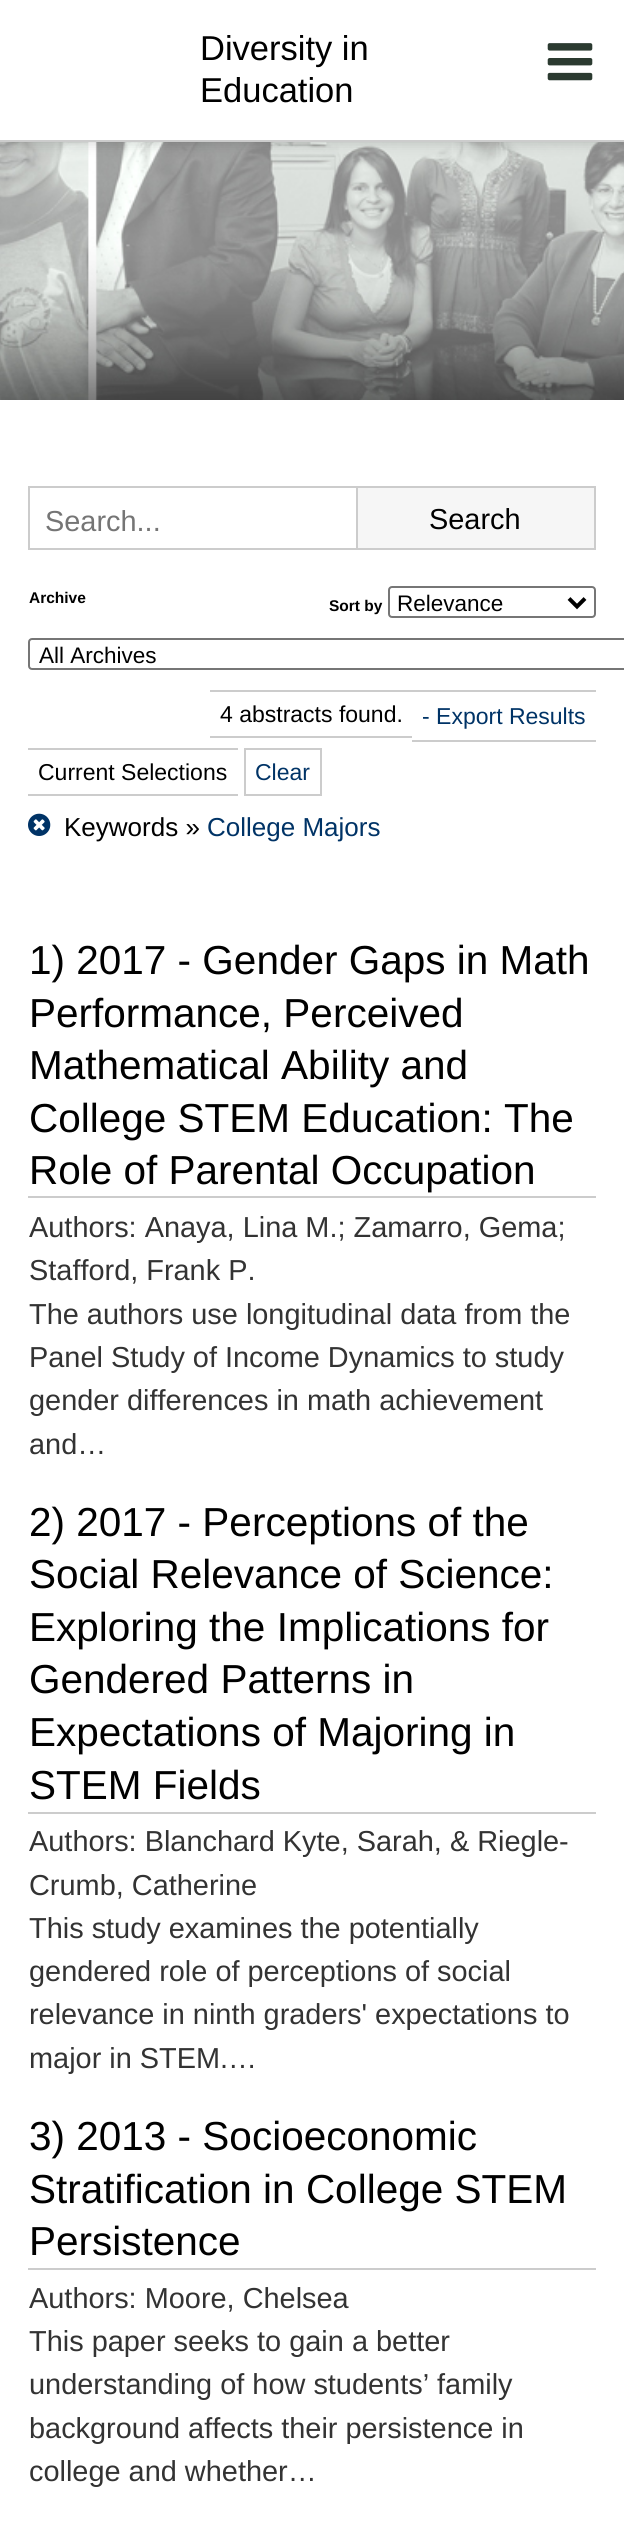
import math
import cairocffi as cairo

surface = cairo.ImageSurface(cairo.FORMAT_RGB24, 624, 2548)
cr = cairo.Context(surface)
options = cairo.FontOptions()
options.set_hint_metrics(cairo.HINT_METRICS_OFF)
options.set_hint_style(cairo.HINT_STYLE_NONE)
cr.set_font_options(options)
cr.set_miter_limit(4)


def use_color(code):
    cr.set_source_rgb(*(v / 255 for v in bytes.fromhex(code[-6:])))


def round_rect(x, y, w, h, r):
    cr.new_sub_path()
    for i, (u, v) in enumerate([(x + w - r, y + h - r), (x + r, y + h - r), (x + r, y + r), (x + w - r, y + r)]):
        cr.arc(u, v, r, i * math.pi / 2, (i + 1) * math.pi / 2)
    cr.close_path()


def shadow(x, y, w, h, r, blur, alpha):
    cr.push_group_with_content(cairo.CONTENT_ALPHA)
    cr.set_operator(cairo.OPERATOR_SOURCE)
    for i in range(15, -16, -2):
        e = blur * i / 6
        if min(w, h) + 2 * e > 0:
            cr.set_source_rgba(0, 0, 0, alpha * math.erfc((i - 1) / 8.5) / 2)
            round_rect(x - e, y - e, w + 2 * e, h + 2 * e, max(0, min(r + e + blur * .6, min(w, h) / 2 + e)))
            cr.fill()
    cr.mask(cr.pop_group())


def picture(path, x, y, w, h):
    cr.save()
    cr.set_source_surface(cairo.ImageSurface.create_from_png(path), x, y)
    cr.rectangle(x, y, w, h)
    cr.fill()
    cr.restore()


use_color("#ffffff")
cr.paint()
picture("img2.png", 0, 142, 624, 258)
use_color("#000000")
shadow(0, 0, 624, 142, 0, 7, 0.2)
use_color("#ffffff")
cr.rectangle(0, 0, 624, 140)
cr.fill()
use_color("#cccccc")
cr.rectangle(0, 140, 624, 2)
cr.fill()
cr.select_font_face("Liberation Sans")
cr.set_font_size(34.5)
use_color("#000000")
cr.move_to(200, 60)
cr.show_text("Diversity in")
cr.move_to(200, 102)
cr.show_text("Education")
picture("img1.png", 547, 43, 46, 38)
cr.rectangle(29, 487, 566, 62)
use_color("#cccccc")
cr.stroke()
cr.set_font_size(28.9)
use_color("#757575")
cr.move_to(45, 531)
cr.show_text("Search...")
use_color("#f6f6f6")
cr.rectangle(357, 487, 238, 62)
cr.fill_preserve()
use_color("#cccccc")
cr.stroke()
use_color("#000000")
cr.move_to(429, 529)
cr.show_text("Search")
cr.select_font_face("Liberation Sans", cairo.FONT_SLANT_NORMAL, cairo.FONT_WEIGHT_BOLD)
cr.set_font_size(15.5)
cr.move_to(29, 603)
cr.show_text("Archive")
round_rect(29, 639, 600, 30, 3)
use_color("#767676")
cr.stroke()
cr.select_font_face("Liberation Sans")
cr.set_font_size(22.5)
use_color("#000000")
cr.move_to(39, 663)
cr.show_text("All Archives")
cr.select_font_face("Liberation Sans", cairo.FONT_SLANT_NORMAL, cairo.FONT_WEIGHT_BOLD)
cr.set_font_size(15.5)
cr.move_to(329, 611)
cr.show_text("Sort by")
round_rect(389, 587, 206, 30, 3)
use_color("#767676")
cr.stroke()
cr.new_path()
cr.move_to(569, 598.5)
cr.line_to(577, 606.5)
cr.line_to(585, 598.5)
use_color("#000000")
cr.set_line_width(4)
cr.stroke()
cr.select_font_face("Liberation Sans")
cr.set_font_size(22.5)
cr.move_to(397, 611)
cr.show_text("Relevance")
use_color("#cccccc")
cr.rectangle(210, 736, 202, 2)
cr.fill()
cr.set_font_size(23)
use_color("#000000")
cr.move_to(220, 722)
cr.show_text("4 abstracts found.")
use_color("#cccccc")
cr.rectangle(210, 690, 386, 2)
cr.fill()
cr.rectangle(412, 740, 184, 2)
cr.fill()
use_color("#003366")
cr.move_to(422, 724)
cr.show_text("- Export Results")
use_color("#cccccc")
cr.rectangle(28, 748, 210, 2)
cr.fill()
cr.rectangle(28, 794, 210, 2)
cr.fill()
use_color("#000000")
cr.move_to(38, 780)
cr.show_text("Current Selections")
cr.rectangle(245, 749, 76, 46)
use_color("#cccccc")
cr.set_line_width(2)
cr.stroke()
use_color("#003366")
cr.move_to(255, 780)
cr.show_text("Clear")
picture("img3.png", 28, 813, 23, 23)
cr.set_font_size(26)
use_color("#000000")
cr.move_to(64, 836)
cr.show_text("Keywords »")
use_color("#003366")
cr.move_to(207, 836)
cr.show_text("College Majors")
use_color("#cccccc")
cr.rectangle(28, 1196, 568, 2)
cr.fill()
cr.set_font_size(40.5)
use_color("#000000")
cr.move_to(29, 974)
cr.show_text("1) 2017 - Gender Gaps in Math")
cr.move_to(29, 1027)
cr.show_text("Performance, Perceived")
cr.move_to(29, 1079)
cr.show_text("Mathematical Ability and")
cr.move_to(29, 1132)
cr.show_text("College STEM Education: The")
cr.move_to(29, 1184)
cr.show_text("Role of Parental Occupation")
cr.set_font_size(28.9)
use_color("#333333")
cr.move_to(29, 1237)
cr.show_text("Authors: Anaya, Lina M.; Zamarro, Gema;")
cr.move_to(29, 1280)
cr.show_text("Stafford, Frank P.")
cr.move_to(29, 1324)
cr.show_text("The authors use longitudinal data from the")
cr.move_to(29, 1367)
cr.show_text("Panel Study of Income Dynamics to study")
cr.move_to(29, 1410)
cr.show_text("gender differences in math achievement")
cr.move_to(29, 1454)
cr.show_text("and…")
use_color("#cccccc")
cr.rectangle(28, 1812, 568, 2)
cr.fill()
cr.set_font_size(40.5)
use_color("#000000")
cr.move_to(29, 1536)
cr.show_text("2) 2017 - Perceptions of the")
cr.move_to(29, 1588)
cr.show_text("Social Relevance of Science:")
cr.move_to(29, 1641)
cr.show_text("Exploring the Implications for")
cr.move_to(29, 1693)
cr.show_text("Gendered Patterns in")
cr.move_to(29, 1746)
cr.show_text("Expectations of Majoring in")
cr.move_to(29, 1799)
cr.show_text("STEM Fields")
cr.set_font_size(28.9)
use_color("#333333")
cr.move_to(29, 1851)
cr.show_text("Authors: Blanchard Kyte, Sarah, & Riegle-")
cr.move_to(29, 1895)
cr.show_text("Crumb, Catherine")
cr.move_to(29, 1938)
cr.show_text("This study examines the potentially")
cr.move_to(29, 1981)
cr.show_text("gendered role of perceptions of social")
cr.move_to(29, 2024)
cr.show_text("relevance in ninth graders' expectations to")
cr.move_to(29, 2068)
cr.show_text("major in STEM.…")
use_color("#cccccc")
cr.rectangle(28, 2268, 568, 2)
cr.fill()
cr.set_font_size(40.5)
use_color("#000000")
cr.move_to(29, 2150)
cr.show_text("3) 2013 - Socioeconomic")
cr.move_to(29, 2203)
cr.show_text("Stratification in College STEM")
cr.move_to(29, 2255)
cr.show_text("Persistence")
cr.set_font_size(28.9)
use_color("#333333")
cr.move_to(29, 2308)
cr.show_text("Authors: Moore, Chelsea")
cr.move_to(29, 2351)
cr.show_text("This paper seeks to gain a better")
cr.move_to(29, 2394)
cr.show_text("understanding of how students’ family")
cr.move_to(29, 2438)
cr.show_text("background affects their persistence in")
cr.move_to(29, 2481)
cr.show_text("college and whether…")
surface.write_to_png("result.png")
